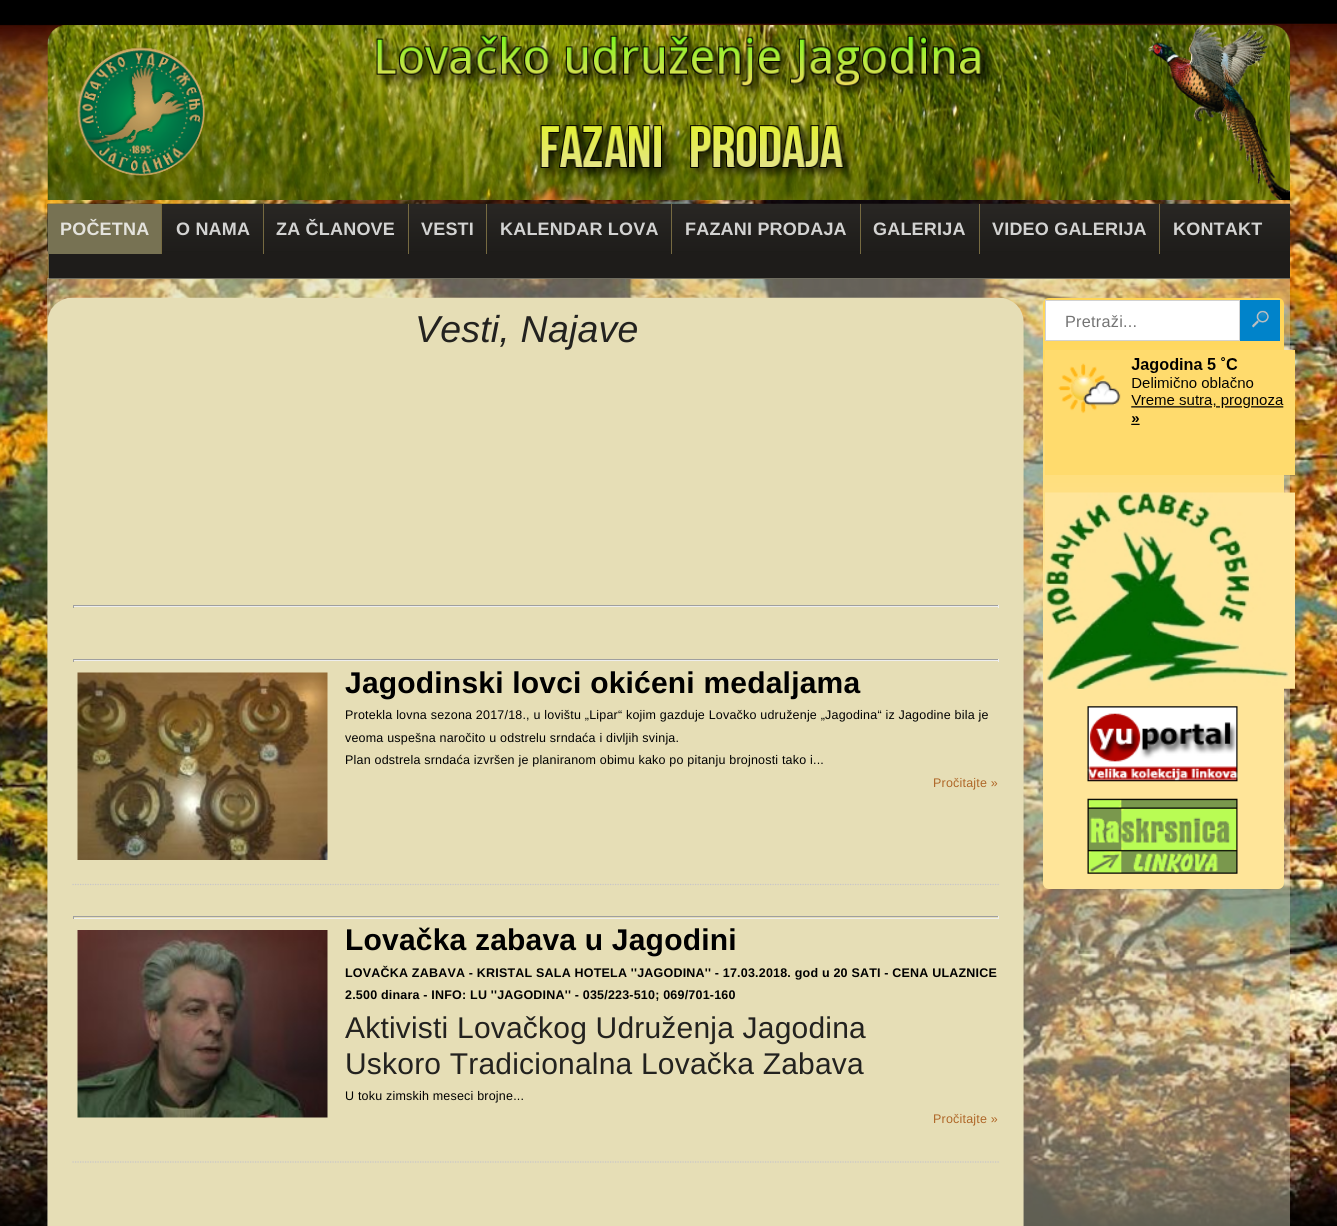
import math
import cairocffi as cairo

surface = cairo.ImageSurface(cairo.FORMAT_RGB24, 1337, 1226)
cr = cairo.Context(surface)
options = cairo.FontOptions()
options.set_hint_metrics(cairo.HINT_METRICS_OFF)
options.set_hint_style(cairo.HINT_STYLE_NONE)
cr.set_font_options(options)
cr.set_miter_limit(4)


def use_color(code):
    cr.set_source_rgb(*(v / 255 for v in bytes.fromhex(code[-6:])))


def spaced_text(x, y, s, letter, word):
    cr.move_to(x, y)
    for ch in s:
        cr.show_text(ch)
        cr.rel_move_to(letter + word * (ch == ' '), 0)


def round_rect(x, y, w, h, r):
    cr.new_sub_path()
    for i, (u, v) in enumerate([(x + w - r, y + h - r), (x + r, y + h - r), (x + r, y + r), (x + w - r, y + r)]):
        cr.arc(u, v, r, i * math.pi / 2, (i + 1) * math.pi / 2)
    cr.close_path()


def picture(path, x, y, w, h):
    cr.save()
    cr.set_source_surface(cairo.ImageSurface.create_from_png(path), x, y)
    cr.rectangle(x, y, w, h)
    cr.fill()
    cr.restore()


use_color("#000000")
cr.paint()
picture("img1.png", 0, 23, 1337, 1203)
picture("img2.png", 47, 25, 1243, 175)
use_color("#1e1c1a")
cr.rectangle(49, 251, 1241, 28)
cr.fill()
picture("img3.png", 47, 203, 1243, 49)
use_color("#777253")
cr.rectangle(48, 204, 113, 50)
cr.fill()
cr.select_font_face("Liberation Sans", cairo.FONT_SLANT_NORMAL, cairo.FONT_WEIGHT_BOLD)
cr.set_font_size(18)
use_color("#e4e3dd")
spaced_text(60, 235, "POČETNA", 0.2, 0)
use_color("#766a41")
cr.rectangle(161, 204, 1, 50)
cr.fill()
use_color("#d3d3d2")
spaced_text(176, 235, "O NAMA", 0.2, 0)
use_color("#766a41")
cr.rectangle(263, 204, 1, 50)
cr.fill()
use_color("#d3d3d2")
spaced_text(276, 235, "ZA ČLANOVE", 0.2, 0)
use_color("#766a41")
cr.rectangle(408, 204, 1, 50)
cr.fill()
use_color("#d3d3d2")
spaced_text(421, 235, "VESTI", 0.2, 0)
use_color("#766a41")
cr.rectangle(486, 204, 1, 50)
cr.fill()
use_color("#d3d3d2")
spaced_text(500, 235, "KALENDAR LOVA", 0.2, 0)
use_color("#766a41")
cr.rectangle(671, 204, 1, 50)
cr.fill()
use_color("#d3d3d2")
spaced_text(685, 235, "FAZANI PRODAJA", 0.2, 0)
use_color("#766a41")
cr.rectangle(860, 204, 1, 50)
cr.fill()
use_color("#d3d3d2")
spaced_text(873, 235, "GALERIJA", 0.2, 0)
use_color("#766a41")
cr.rectangle(979, 204, 1, 50)
cr.fill()
use_color("#d3d3d2")
spaced_text(992, 235, "VIDEO GALERIJA", 0.2, 0)
use_color("#766a41")
cr.rectangle(1159, 204, 1, 50)
cr.fill()
use_color("#d3d3d2")
spaced_text(1173, 235, "KONTAKT", 0.2, 0)
use_color("#766a41")
cr.rectangle(48, 254, 1, 25)
cr.fill()
cr.set_source_rgba(0.827, 0.82, 0.714, 0.45)
cr.rectangle(47, 278, 1243, 948)
cr.fill()
picture("img4.png", 47, 297, 977, 929)
cr.select_font_face("Liberation Sans", cairo.FONT_SLANT_ITALIC)
cr.set_font_size(37.5)
use_color("#23221f")
spaced_text(415, 342, "Vesti, Najave", 0.2, 0)
use_color("#9f9f9f")
cr.rectangle(73, 605, 926, 1)
cr.fill()
use_color("#eeeeee")
cr.rectangle(998, 605, 1, 3)
cr.fill()
cr.rectangle(73, 606, 926, 1)
cr.fill()
use_color("#9f9f9f")
cr.rectangle(73, 605, 1, 3)
cr.fill()
cr.rectangle(73, 659, 926, 1)
cr.fill()
use_color("#eeeeee")
cr.rectangle(998, 659, 1, 3)
cr.fill()
cr.rectangle(73, 660, 926, 1)
cr.fill()
use_color("#9f9f9f")
cr.rectangle(73, 659, 1, 3)
cr.fill()
cr.new_path()
cr.move_to(72.5, 884.5)
cr.line_to(999, 884.5)
use_color("#c7c5c8")
cr.set_line_width(1.2)
cr.set_dash([1.25, 1.25])
cr.stroke()
picture("img5.png", 77, 672, 251, 188)
cr.select_font_face("Liberation Sans", cairo.FONT_SLANT_NORMAL, cairo.FONT_WEIGHT_BOLD)
cr.set_font_size(30)
use_color("#000000")
spaced_text(345, 693, "Jagodinski lovci okićeni medaljama", 0.2, 0)
cr.select_font_face("Liberation Sans")
cr.set_font_size(12.5)
spaced_text(345, 719, "Protekla lovna sezona 2017/18., u lovištu „Lipar“ kojim gazduje Lovačko udruženje „Jagodina“ iz Jagodine bila je", 0.2, 0)
spaced_text(345, 742, "veoma uspešna naročito u odstrelu srndaća i divljih svinja.", 0.2, 0)
spaced_text(345, 764, "Plan odstrela srndaća izvršen je planiranom obimu kako po pitanju brojnosti tako i...", 0.2, 0)
use_color("#af6728")
spaced_text(933, 787, "Pročitajte »", 0.2, 0)
use_color("#9f9f9f")
cr.rectangle(73, 916, 926, 1)
cr.fill()
use_color("#eeeeee")
cr.rectangle(998, 916, 1, 3)
cr.fill()
cr.rectangle(73, 918, 926, 1)
cr.fill()
use_color("#9f9f9f")
cr.rectangle(73, 916, 1, 3)
cr.fill()
cr.new_path()
cr.move_to(72.5, 1162)
cr.line_to(999, 1162)
use_color("#c7c5c8")
cr.stroke()
picture("img6.png", 77, 930, 251, 188)
cr.select_font_face("Liberation Sans", cairo.FONT_SLANT_NORMAL, cairo.FONT_WEIGHT_BOLD)
cr.set_font_size(30)
use_color("#000000")
spaced_text(345, 950, "Lovačka zabava u Jagodini", 0.2, 0)
cr.set_font_size(12.5)
spaced_text(345, 977, "LOVAČKA ZABAVA - KRISTAL SALA HOTELA ''JAGODINA'' - 17.03.2018. god u 20 SATI - CENA ULAZNICE", 0.2, 0)
spaced_text(345, 999, "2.500 dinara - INFO: LU ''JAGODINA'' - 035/223-510; 069/701-160", 0.2, 0)
cr.select_font_face("Liberation Sans")
cr.set_font_size(30)
use_color("#23221f")
spaced_text(345, 1038, "Aktivisti Lovačkog Udruženja Jagodina", 0.2, 0)
spaced_text(345, 1074, "Uskoro Tradicionalna Lovačka Zabava", 0.2, 0)
cr.set_font_size(12.5)
use_color("#000000")
spaced_text(345, 1100, "U toku zimskih meseci brojne...", 0.2, 0)
use_color("#af6728")
spaced_text(933, 1123, "Pročitajte »", 0.2, 0)
gradient = cairo.LinearGradient(1163, 298, 1163, 889)
gradient.add_color_stop_rgba(0, 1, 0.835, 0.333, 1)
gradient.add_color_stop_rgba(0.5, 1, 0.898, 0.6, 1)
cr.set_source(gradient)
round_rect(1043, 298, 241, 591, 6)
cr.fill()
use_color("#ffffff")
cr.rectangle(1045.5, 300.5, 194, 40)
cr.fill_preserve()
use_color("#d2d2d2")
cr.set_line_width(1)
cr.set_dash([])
cr.stroke()
cr.set_font_size(16.25)
use_color("#747474")
spaced_text(1065, 327, "Pretraži...", 0.25, 0)
use_color("#0083ca")
cr.rectangle(1240, 300, 40, 41)
cr.fill()
picture("img7.png", 1252, 310, 17, 18)
picture("img8.png", 1045, 350, 250, 125)
picture("img9.png", 1045, 492, 250, 197)
picture("img10.png", 1087, 706, 151, 76)
picture("img11.png", 1087, 798, 151, 76)
surface.write_to_png("result.png")
